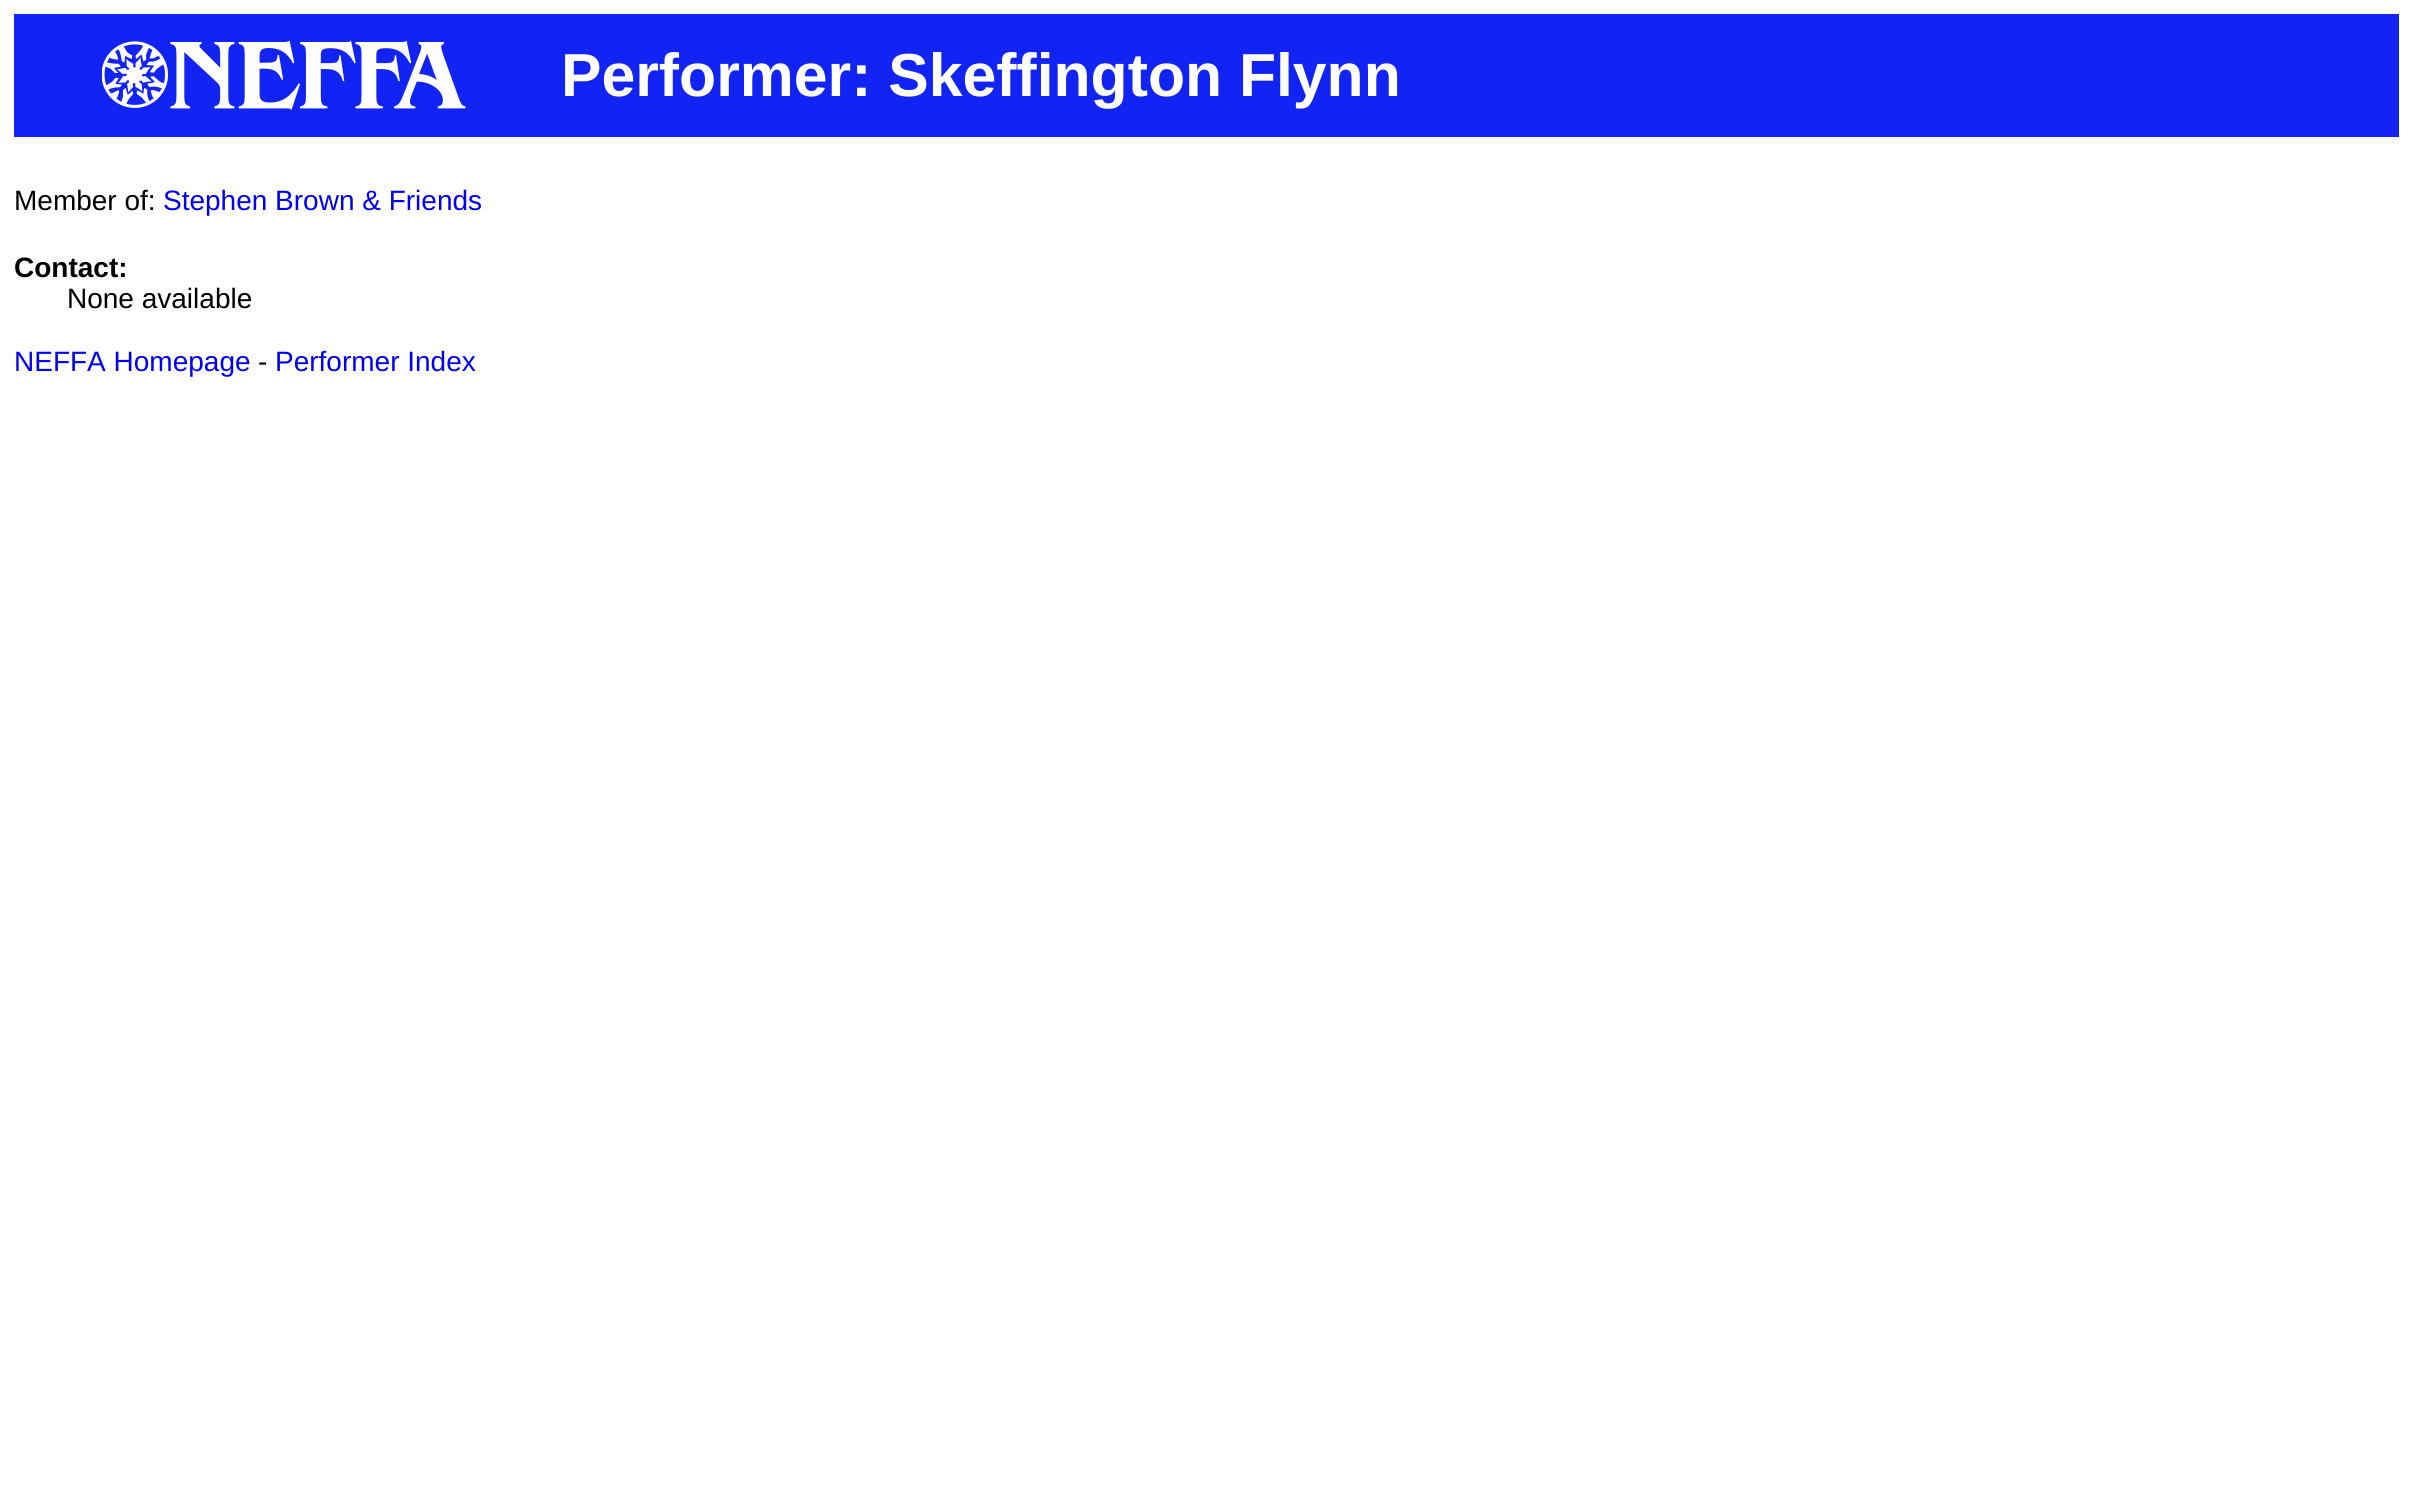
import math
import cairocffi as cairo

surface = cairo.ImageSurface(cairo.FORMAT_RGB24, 2412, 1509)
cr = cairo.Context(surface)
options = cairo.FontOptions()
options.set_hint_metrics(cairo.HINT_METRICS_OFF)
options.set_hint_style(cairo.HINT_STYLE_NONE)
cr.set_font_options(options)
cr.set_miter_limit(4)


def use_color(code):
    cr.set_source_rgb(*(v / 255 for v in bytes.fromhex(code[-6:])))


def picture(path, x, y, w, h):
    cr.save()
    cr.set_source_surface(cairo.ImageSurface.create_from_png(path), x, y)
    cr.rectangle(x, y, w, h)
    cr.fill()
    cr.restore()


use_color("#ffffff")
cr.paint()
use_color("#1224f4")
cr.rectangle(14, 14, 2385, 123)
cr.fill()
picture("img1.png", 102, 40, 364, 70)
cr.select_font_face("Liberation Sans", cairo.FONT_SLANT_NORMAL, cairo.FONT_WEIGHT_BOLD)
cr.set_font_size(60.7)
use_color("#ffffff")
cr.move_to(561, 96)
cr.show_text("Performer: Skeffington Flynn")
cr.select_font_face("Liberation Sans")
cr.set_font_size(28)
use_color("#000000")
cr.move_to(14, 210)
cr.show_text("Member of:")
use_color("#0000ee")
cr.move_to(163, 210)
cr.show_text("Stephen Brown & Friends")
cr.select_font_face("Liberation Sans", cairo.FONT_SLANT_NORMAL, cairo.FONT_WEIGHT_BOLD)
use_color("#000000")
cr.move_to(14, 277)
cr.show_text("Contact:")
cr.select_font_face("Liberation Sans")
cr.move_to(67, 308)
cr.show_text("None available")
use_color("#0000ee")
cr.move_to(14, 371)
cr.show_text("NEFFA Homepage")
use_color("#000000")
cr.move_to(258, 371)
cr.show_text("-")
use_color("#0000ee")
cr.move_to(275, 371)
cr.show_text("Performer Index")
surface.write_to_png("result.png")
